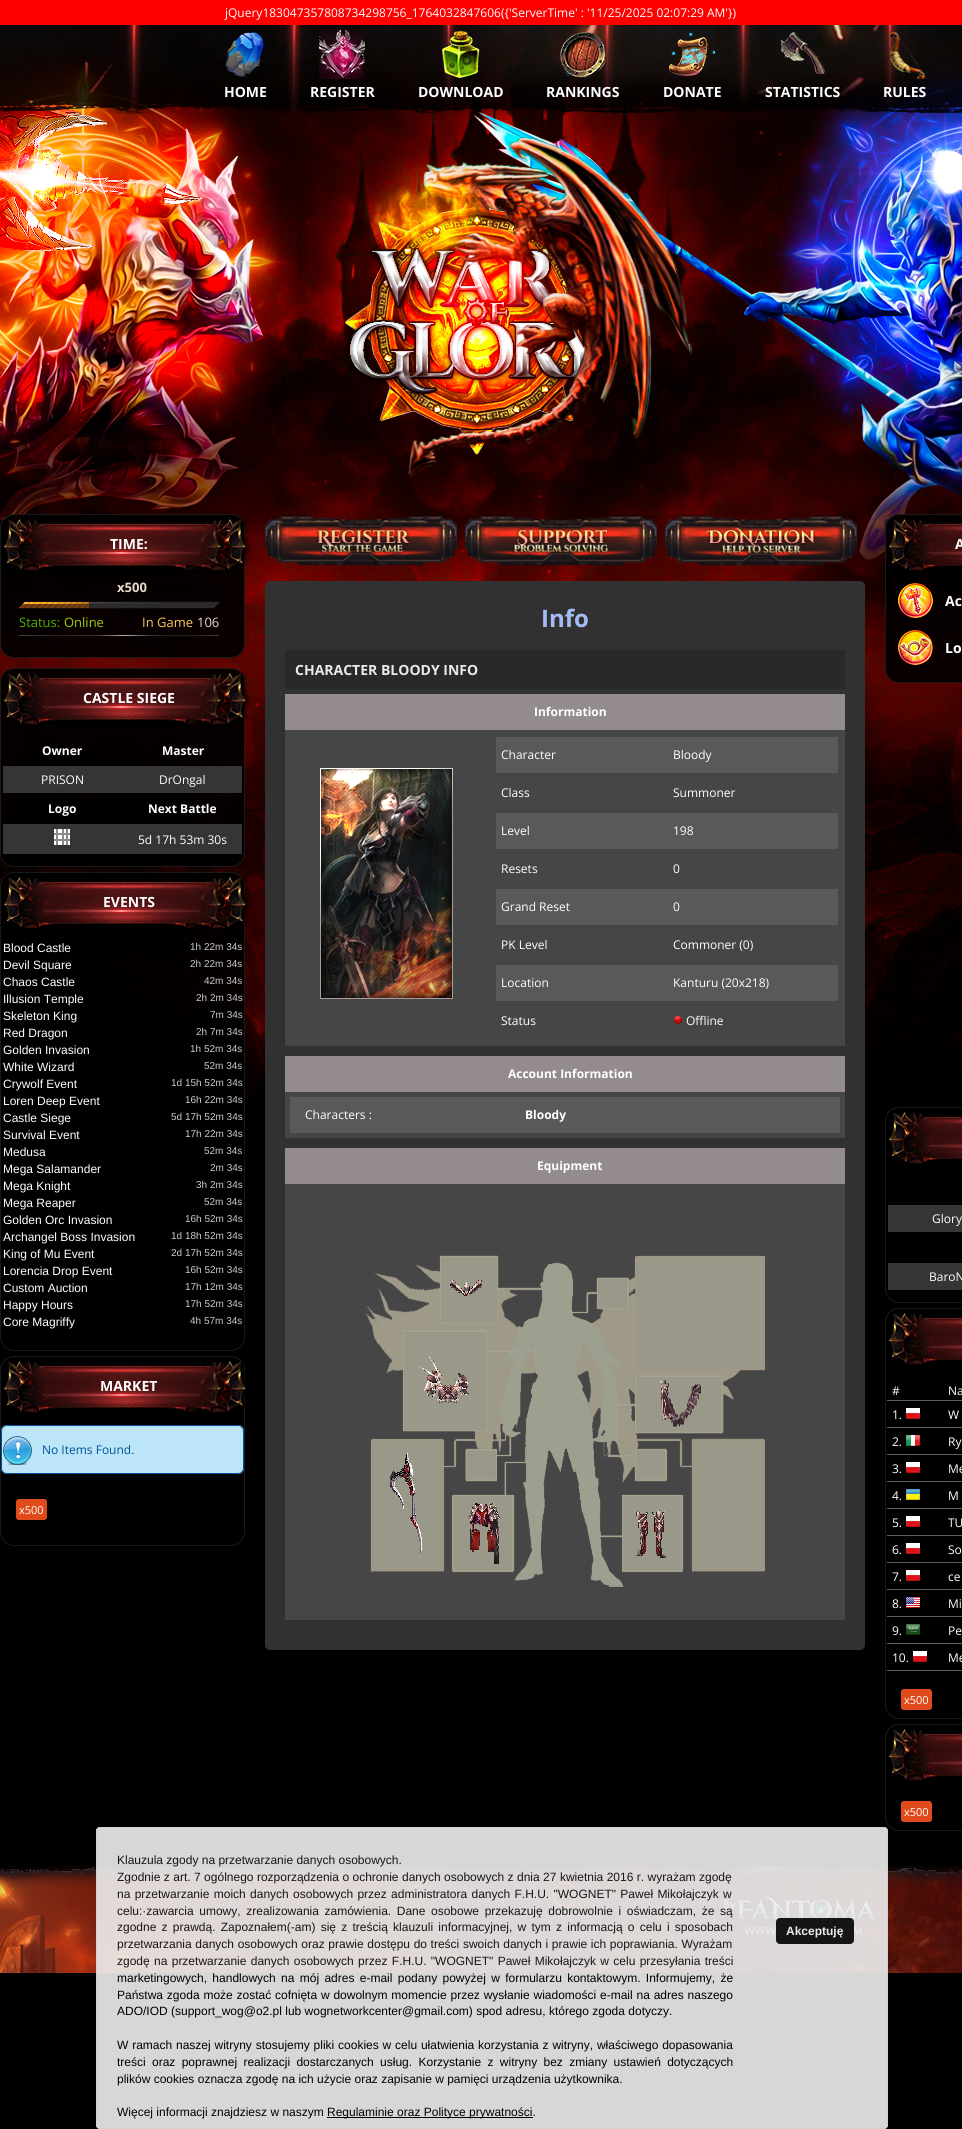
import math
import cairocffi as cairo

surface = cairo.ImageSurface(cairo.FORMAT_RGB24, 962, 2129)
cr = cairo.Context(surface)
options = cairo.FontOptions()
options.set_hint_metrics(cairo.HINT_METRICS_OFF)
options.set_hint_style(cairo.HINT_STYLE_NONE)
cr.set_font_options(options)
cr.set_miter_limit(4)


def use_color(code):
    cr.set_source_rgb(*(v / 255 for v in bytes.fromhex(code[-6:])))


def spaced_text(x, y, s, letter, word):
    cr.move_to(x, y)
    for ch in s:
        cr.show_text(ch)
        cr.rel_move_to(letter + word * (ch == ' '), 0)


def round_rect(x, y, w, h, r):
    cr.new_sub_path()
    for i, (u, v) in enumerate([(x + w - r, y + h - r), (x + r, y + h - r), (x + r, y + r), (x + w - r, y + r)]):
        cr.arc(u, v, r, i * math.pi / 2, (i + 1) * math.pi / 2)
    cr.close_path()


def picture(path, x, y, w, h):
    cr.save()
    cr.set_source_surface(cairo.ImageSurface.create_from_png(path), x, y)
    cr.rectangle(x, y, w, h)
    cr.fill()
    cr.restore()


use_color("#000000")
cr.paint()
picture("img1.png", 0, 25, 962, 1111)
use_color("#ff0000")
cr.rectangle(0, 0, 962, 25)
cr.fill()
cr.select_font_face("Open Sans")
cr.set_font_size(12)
use_color("#ffffff")
cr.move_to(225, 17)
cr.show_text("jQuery183047357808734298756_1764032847606({'ServerTime' : '11/25/2025 02:07:29 AM'})")
picture("img2.png", 0, 25, 962, 89)
picture("img3.png", 225, 32, 39, 46)
cr.select_font_face("Open Sans", cairo.FONT_SLANT_NORMAL, cairo.FONT_WEIGHT_BOLD)
cr.set_font_size(14)
cr.move_to(224, 97)
cr.show_text("HOME")
picture("img4.png", 319, 30, 46, 49)
cr.move_to(310, 97)
cr.show_text("REGISTER")
picture("img5.png", 441, 30, 42, 49)
cr.move_to(418, 97)
cr.show_text("DOWNLOAD")
picture("img6.png", 560, 32, 46, 46)
cr.move_to(546, 97)
cr.show_text("RANKINGS")
picture("img7.png", 669, 32, 46, 44)
cr.move_to(663, 97)
cr.show_text("DONATE")
picture("img8.png", 780, 32, 45, 43)
cr.move_to(765, 97)
cr.show_text("STATISTICS")
picture("img9.png", 888, 30, 38, 49)
cr.move_to(883, 97)
cr.show_text("RULES")
cr.set_source_rgba(0, 0, 0, 0.9)
round_rect(0, 514, 245, 144, 14)
cr.fill()
round_rect(0.5, 514.5, 244, 143, 13.5)
cr.set_source_rgba(1, 1, 1, 0.1)
cr.set_line_width(1)
cr.stroke()
picture("img10.png", 4, 518, 260, 55)
use_color("#ffffff")
cr.move_to(110, 549)
cr.show_text("TIME:")
cr.set_font_size(13)
use_color("#e5dacb")
cr.move_to(117, 592)
cr.show_text("x500")
picture("img11.png", 18, 601, 202, 8)
picture("img12.png", 18, 602, 71, 7)
cr.select_font_face("Open Sans")
use_color("#4fb105")
cr.move_to(19, 627)
cr.show_text("Status:")
use_color("#9fcf0f")
cr.move_to(64, 627)
cr.show_text("Online")
use_color("#fdc55c")
cr.move_to(142, 627)
cr.show_text("In Game")
use_color("#e5dacb")
cr.move_to(197, 627)
cr.show_text("106")
picture("img13.png", 19, 635, 200, 2)
cr.set_source_rgba(0, 0, 0, 0.9)
round_rect(0, 668, 245, 199, 14)
cr.fill()
round_rect(0.5, 668.5, 244, 198, 13.5)
cr.set_source_rgba(1, 1, 1, 0.1)
cr.stroke()
picture("img14.png", 4, 671, 248, 56)
cr.select_font_face("Open Sans", cairo.FONT_SLANT_NORMAL, cairo.FONT_WEIGHT_BOLD)
cr.set_font_size(14)
use_color("#ffffff")
cr.move_to(83, 703)
cr.show_text("CASTLE SIEGE")
cr.set_font_size(12)
cr.move_to(42, 755)
cr.show_text("Owner")
cr.move_to(162, 755)
cr.show_text("Master")
use_color("#353535")
cr.rectangle(3, 766, 239, 27)
cr.fill()
cr.select_font_face("Open Sans")
use_color("#ffffff")
cr.move_to(41, 784)
cr.show_text("PRISON")
cr.move_to(159, 784)
cr.show_text("DrOngal")
cr.select_font_face("Open Sans", cairo.FONT_SLANT_NORMAL, cairo.FONT_WEIGHT_BOLD)
cr.move_to(48, 813)
cr.show_text("Logo")
cr.move_to(148, 813)
cr.show_text("Next Battle")
use_color("#353535")
cr.rectangle(3, 824, 239, 30)
cr.fill()
picture("img15.png", 54, 829, 16, 16)
cr.select_font_face("Open Sans")
use_color("#ffffff")
cr.move_to(138, 844)
cr.show_text("5d 17h 53m 30s")
cr.set_source_rgba(0, 0, 0, 0.9)
round_rect(0, 872, 245, 479, 14)
cr.fill()
round_rect(0.5, 872.5, 244, 478, 13.5)
cr.set_source_rgba(1, 1, 1, 0.1)
cr.stroke()
picture("img16.png", 4, 876, 247, 53)
cr.select_font_face("Open Sans", cairo.FONT_SLANT_NORMAL, cairo.FONT_WEIGHT_BOLD)
cr.set_font_size(14)
use_color("#ffffff")
cr.move_to(103, 907)
cr.show_text("EVENTS")
cr.select_font_face("Liberation Sans")
cr.set_font_size(12)
cr.move_to(3, 952)
cr.show_text("Blood Castle")
cr.set_font_size(10)
use_color("#cccccc")
cr.move_to(190, 950)
cr.show_text("1h 22m 34s")
cr.set_font_size(12)
use_color("#ffffff")
cr.move_to(3, 969)
cr.show_text("Devil Square")
cr.set_font_size(10)
use_color("#cccccc")
cr.move_to(190, 967)
cr.show_text("2h 22m 34s")
cr.set_font_size(12)
use_color("#ffffff")
cr.move_to(3, 986)
cr.show_text("Chaos Castle")
cr.set_font_size(10)
use_color("#cccccc")
cr.move_to(204, 984)
cr.show_text("42m 34s")
cr.set_font_size(12)
use_color("#ffffff")
cr.move_to(3, 1003)
cr.show_text("Illusion Temple")
cr.set_font_size(10)
use_color("#cccccc")
cr.move_to(196, 1001)
cr.show_text("2h 2m 34s")
cr.set_font_size(12)
use_color("#ffffff")
cr.move_to(3, 1020)
cr.show_text("Skeleton King")
cr.set_font_size(10)
use_color("#cccccc")
cr.move_to(210, 1018)
cr.show_text("7m 34s")
cr.set_font_size(12)
use_color("#ffffff")
cr.move_to(3, 1037)
cr.show_text("Red Dragon")
cr.set_font_size(10)
use_color("#cccccc")
cr.move_to(196, 1035)
cr.show_text("2h 7m 34s")
cr.set_font_size(12)
use_color("#ffffff")
cr.move_to(3, 1054)
cr.show_text("Golden Invasion")
cr.set_font_size(10)
use_color("#cccccc")
cr.move_to(190, 1052)
cr.show_text("1h 52m 34s")
cr.set_font_size(12)
use_color("#ffffff")
cr.move_to(3, 1071)
cr.show_text("White Wizard")
cr.set_font_size(10)
use_color("#cccccc")
cr.move_to(204, 1069)
cr.show_text("52m 34s")
cr.set_font_size(12)
use_color("#ffffff")
cr.move_to(3, 1088)
cr.show_text("Crywolf Event")
cr.set_font_size(10)
use_color("#cccccc")
cr.move_to(171, 1086)
cr.show_text("1d 15h 52m 34s")
cr.set_font_size(12)
use_color("#ffffff")
cr.move_to(3, 1105)
cr.show_text("Loren Deep Event")
cr.set_font_size(10)
use_color("#cccccc")
cr.move_to(185, 1103)
cr.show_text("16h 22m 34s")
cr.set_font_size(12)
use_color("#ffffff")
cr.move_to(3, 1122)
cr.show_text("Castle Siege")
cr.set_font_size(10)
use_color("#cccccc")
cr.move_to(171, 1120)
cr.show_text("5d 17h 52m 34s")
cr.set_font_size(12)
use_color("#ffffff")
cr.move_to(3, 1139)
cr.show_text("Survival Event")
cr.set_font_size(10)
use_color("#cccccc")
cr.move_to(185, 1137)
cr.show_text("17h 22m 34s")
cr.set_font_size(12)
use_color("#ffffff")
cr.move_to(3, 1156)
cr.show_text("Medusa")
cr.set_font_size(10)
use_color("#cccccc")
cr.move_to(204, 1154)
cr.show_text("52m 34s")
cr.set_font_size(12)
use_color("#ffffff")
cr.move_to(3, 1173)
cr.show_text("Mega Salamander")
cr.set_font_size(10)
use_color("#cccccc")
cr.move_to(210, 1171)
cr.show_text("2m 34s")
cr.set_font_size(12)
use_color("#ffffff")
cr.move_to(3, 1190)
cr.show_text("Mega Knight")
cr.set_font_size(10)
use_color("#cccccc")
cr.move_to(196, 1188)
cr.show_text("3h 2m 34s")
cr.set_font_size(12)
use_color("#ffffff")
cr.move_to(3, 1207)
cr.show_text("Mega Reaper")
cr.set_font_size(10)
use_color("#cccccc")
cr.move_to(204, 1205)
cr.show_text("52m 34s")
cr.set_font_size(12)
use_color("#ffffff")
cr.move_to(3, 1224)
cr.show_text("Golden Orc Invasion")
cr.set_font_size(10)
use_color("#cccccc")
cr.move_to(185, 1222)
cr.show_text("16h 52m 34s")
cr.set_font_size(12)
use_color("#ffffff")
cr.move_to(3, 1241)
cr.show_text("Archangel Boss Invasion")
cr.set_font_size(10)
use_color("#cccccc")
cr.move_to(171, 1239)
cr.show_text("1d 18h 52m 34s")
cr.set_font_size(12)
use_color("#ffffff")
cr.move_to(3, 1258)
cr.show_text("King of Mu Event")
cr.set_font_size(10)
use_color("#cccccc")
cr.move_to(171, 1256)
cr.show_text("2d 17h 52m 34s")
cr.set_font_size(12)
use_color("#ffffff")
cr.move_to(3, 1275)
cr.show_text("Lorencia Drop Event")
cr.set_font_size(10)
use_color("#cccccc")
cr.move_to(185, 1273)
cr.show_text("16h 52m 34s")
cr.set_font_size(12)
use_color("#ffffff")
cr.move_to(3, 1292)
cr.show_text("Custom Auction")
cr.set_font_size(10)
use_color("#cccccc")
cr.move_to(185, 1290)
cr.show_text("17h 12m 34s")
cr.set_font_size(12)
use_color("#ffffff")
cr.move_to(3, 1309)
cr.show_text("Happy Hours")
cr.set_font_size(10)
use_color("#cccccc")
cr.move_to(185, 1307)
cr.show_text("17h 52m 34s")
cr.set_font_size(12)
use_color("#ffffff")
cr.move_to(3, 1326)
cr.show_text("Core Magriffy")
cr.set_font_size(10)
use_color("#cccccc")
cr.move_to(190, 1324)
cr.show_text("4h 57m 34s")
round_rect(0.5, 1356.5, 244, 189, 13.5)
use_color("#1a1a1a")
cr.stroke()
picture("img17.png", 4, 1361, 242, 52)
cr.select_font_face("Open Sans", cairo.FONT_SLANT_NORMAL, cairo.FONT_WEIGHT_BOLD)
cr.set_font_size(14)
use_color("#ffffff")
cr.move_to(100, 1391)
cr.show_text("MARKET")
use_color("#bde5f8")
round_rect(1, 1425, 243, 49, 6)
cr.fill()
picture("img18.png", 3, 1436, 29, 29)
round_rect(1.5, 1425.5, 242, 48, 5.5)
use_color("#00529b")
cr.stroke()
cr.select_font_face("Open Sans")
cr.set_font_size(12)
cr.move_to(42, 1454)
cr.show_text("No Items Found.")
use_color("#e14b1b")
round_rect(16, 1499, 31, 21, 3)
cr.fill()
cr.set_font_size(11)
use_color("#ffffff")
cr.move_to(19, 1514)
cr.show_text("x500")
picture("img19.png", 265, 515, 192, 50)
picture("img20.png", 465, 515, 192, 50)
picture("img21.png", 665, 515, 192, 50)
use_color("#313131")
round_rect(265, 581, 600, 1069, 5)
cr.fill()
cr.select_font_face("Open Sans", cairo.FONT_SLANT_NORMAL, cairo.FONT_WEIGHT_BOLD)
cr.set_font_size(24)
use_color("#a3bdf4")
cr.move_to(541, 627)
cr.show_text("Info")
use_color("#292929")
cr.rectangle(285, 650, 560, 39)
cr.fill()
cr.set_font_size(14)
use_color("#ece9ea")
cr.move_to(295, 675)
cr.show_text("CHARACTER BLOODY INFO")
use_color("#948b8e")
cr.rectangle(285, 694, 560, 36)
cr.fill()
cr.set_font_size(12)
use_color("#ffffff")
cr.move_to(534, 716)
cr.show_text("Information")
use_color("#464646")
cr.rectangle(285, 730, 560, 316)
cr.fill()
picture("img22.png", 320, 768, 133, 231)
use_color("#595959")
cr.rectangle(496, 737, 342, 36)
cr.fill()
cr.select_font_face("Open Sans")
use_color("#ffffff")
cr.move_to(501, 759)
cr.show_text("Character")
cr.move_to(673, 759)
cr.show_text("Bloody")
cr.move_to(501, 797)
cr.show_text("Class")
cr.move_to(673, 797)
cr.show_text("Summoner")
use_color("#595959")
cr.rectangle(496, 813, 342, 36)
cr.fill()
use_color("#ffffff")
cr.move_to(501, 835)
cr.show_text("Level")
cr.move_to(673, 835)
cr.show_text("198")
cr.move_to(501, 873)
cr.show_text("Resets")
cr.move_to(673, 873)
cr.show_text("0")
use_color("#595959")
cr.rectangle(496, 889, 342, 36)
cr.fill()
use_color("#ffffff")
cr.move_to(501, 911)
cr.show_text("Grand Reset")
cr.move_to(673, 911)
cr.show_text("0")
cr.move_to(501, 949)
cr.show_text("PK Level")
cr.move_to(673, 949)
cr.show_text("Commoner (0)")
use_color("#595959")
cr.rectangle(496, 965, 342, 36)
cr.fill()
use_color("#ffffff")
cr.move_to(501, 987)
cr.show_text("Location")
cr.move_to(673, 987)
cr.show_text("Kanturu (20x218)")
cr.move_to(501, 1025)
cr.show_text("Status")
picture("img23.png", 674, 1016, 8, 8)
cr.move_to(686, 1025)
cr.show_text("Offline")
use_color("#948b8e")
cr.rectangle(285, 1056, 560, 36)
cr.fill()
cr.select_font_face("Open Sans", cairo.FONT_SLANT_NORMAL, cairo.FONT_WEIGHT_BOLD)
use_color("#ffffff")
cr.move_to(508, 1078)
cr.show_text("Account Information")
use_color("#464646")
cr.rectangle(285, 1092, 560, 46)
cr.fill()
use_color("#595959")
cr.rectangle(290, 1097, 550, 36)
cr.fill()
cr.select_font_face("Open Sans")
use_color("#ffffff")
cr.move_to(305, 1119)
cr.show_text("Characters :")
cr.select_font_face("Open Sans", cairo.FONT_SLANT_NORMAL, cairo.FONT_WEIGHT_BOLD)
cr.move_to(525, 1119)
cr.show_text("Bloody")
use_color("#948b8e")
cr.rectangle(285, 1148, 560, 36)
cr.fill()
use_color("#ffffff")
cr.move_to(537, 1170)
cr.show_text("Equipment")
use_color("#464646")
cr.rectangle(285, 1184, 560, 436)
cr.fill()
picture("img24.png", 366, 1255, 399, 332)
picture("img25.png", 450, 1280, 32, 16)
picture("img26.png", 419, 1356, 50, 47)
picture("img27.png", 660, 1380, 41, 47)
picture("img28.png", 390, 1453, 32, 103)
picture("img29.png", 468, 1503, 32, 61)
picture("img30.png", 636, 1510, 30, 48)
cr.set_source_rgba(0, 0, 0, 0.9)
round_rect(885, 514, 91, 169, 14)
cr.fill()
round_rect(885.5, 514.5, 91, 168, 13.5)
cr.set_source_rgba(1, 1, 1, 0.1)
cr.stroke()
picture("img31.png", 889, 519, 73, 52)
cr.set_font_size(14)
use_color("#ffffff")
cr.move_to(955, 549)
cr.show_text("A")
picture("img32.png", 898, 583, 35, 35)
cr.move_to(945, 606)
cr.show_text("Ac")
picture("img33.png", 898, 630, 35, 35)
cr.move_to(945, 653)
cr.show_text("Lo")
round_rect(885.5, 1107.5, 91, 195, 13.5)
use_color("#1a1a1a")
cr.stroke()
picture("img34.png", 889, 1112, 73, 52)
use_color("#353535")
cr.rectangle(888, 1205, 74, 27)
cr.fill()
cr.select_font_face("Open Sans")
cr.set_font_size(12)
use_color("#ffffff")
cr.move_to(932, 1223)
cr.show_text("Glory")
use_color("#353535")
cr.rectangle(888, 1263, 74, 27)
cr.fill()
use_color("#ffffff")
cr.move_to(929, 1281)
cr.show_text("BaroN")
round_rect(885.5, 1308.5, 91, 410, 13.5)
use_color("#1a1a1a")
cr.stroke()
picture("img35.png", 889, 1313, 73, 52)
use_color("#ffffff")
cr.move_to(892, 1395)
cr.show_text("#")
use_color("#5d5c5c")
cr.rectangle(887, 1400, 75, 1)
cr.fill()
use_color("#ffffff")
cr.move_to(948, 1395)
cr.show_text("Na")
cr.move_to(892, 1419)
cr.show_text("1.")
picture("img36.png", 906, 1408, 14, 11)
use_color("#5d5c5c")
cr.rectangle(887, 1427, 75, 1)
cr.fill()
use_color("#ffffff")
cr.move_to(948, 1419)
cr.show_text("W")
cr.move_to(892, 1446)
cr.show_text("2.")
picture("img37.png", 906, 1435, 14, 11)
use_color("#5d5c5c")
cr.rectangle(887, 1454, 75, 1)
cr.fill()
use_color("#ffffff")
cr.move_to(948, 1446)
cr.show_text("Ry")
cr.move_to(892, 1473)
cr.show_text("3.")
picture("img36.png", 906, 1462, 14, 11)
use_color("#5d5c5c")
cr.rectangle(887, 1481, 75, 1)
cr.fill()
use_color("#ffffff")
cr.move_to(948, 1473)
cr.show_text("Me")
cr.move_to(892, 1500)
cr.show_text("4.")
picture("img38.png", 906, 1489, 14, 11)
use_color("#5d5c5c")
cr.rectangle(887, 1508, 75, 1)
cr.fill()
use_color("#ffffff")
cr.move_to(948, 1500)
cr.show_text("M")
cr.move_to(892, 1527)
cr.show_text("5.")
picture("img36.png", 906, 1516, 14, 11)
use_color("#5d5c5c")
cr.rectangle(887, 1535, 75, 1)
cr.fill()
use_color("#ffffff")
cr.move_to(948, 1527)
cr.show_text("TU")
cr.move_to(892, 1554)
cr.show_text("6.")
picture("img36.png", 906, 1543, 14, 11)
use_color("#5d5c5c")
cr.rectangle(887, 1562, 75, 1)
cr.fill()
use_color("#ffffff")
cr.move_to(948, 1554)
cr.show_text("So")
cr.move_to(892, 1581)
cr.show_text("7.")
picture("img36.png", 906, 1570, 14, 11)
use_color("#5d5c5c")
cr.rectangle(887, 1589, 75, 1)
cr.fill()
use_color("#ffffff")
cr.move_to(948, 1581)
cr.show_text("ce")
cr.move_to(892, 1608)
cr.show_text("8.")
picture("img39.png", 906, 1597, 14, 11)
use_color("#5d5c5c")
cr.rectangle(887, 1616, 75, 1)
cr.fill()
use_color("#ffffff")
cr.move_to(948, 1608)
cr.show_text("Mi")
cr.move_to(892, 1635)
cr.show_text("9.")
picture("img40.png", 906, 1624, 14, 11)
use_color("#5d5c5c")
cr.rectangle(887, 1643, 75, 1)
cr.fill()
use_color("#ffffff")
cr.move_to(948, 1635)
cr.show_text("Pe")
cr.move_to(892, 1662)
cr.show_text("10.")
picture("img36.png", 913, 1651, 14, 11)
use_color("#5d5c5c")
cr.rectangle(887, 1670, 75, 1)
cr.fill()
use_color("#ffffff")
cr.move_to(948, 1662)
cr.show_text("Me")
use_color("#e14b1b")
round_rect(901, 1689, 31, 21, 3)
cr.fill()
cr.set_font_size(11)
use_color("#ffffff")
cr.move_to(904, 1704)
cr.show_text("x500")
round_rect(885.5, 1724.5, 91, 106, 13.5)
use_color("#1a1a1a")
cr.stroke()
picture("img35.png", 889, 1729, 73, 52)
use_color("#e14b1b")
round_rect(901, 1801, 31, 21, 3)
cr.fill()
use_color("#ffffff")
cr.move_to(904, 1816)
cr.show_text("x500")
picture("img41.png", 0, 1866, 962, 107)
picture("img42.png", 552, 1882, 25, 25)
cr.set_source_rgba(0.937, 0.937, 0.937, 0.9)
round_rect(96, 1827, 792, 302, 4)
cr.fill()
round_rect(96.5, 1827.5, 791, 301, 3.5)
cr.set_source_rgba(0.827, 0.816, 0.816, 0.9)
cr.stroke()
cr.select_font_face("Liberation Sans")
cr.set_font_size(12)
use_color("#161616")
cr.move_to(117, 1864)
cr.show_text("Klauzula zgody na przetwarzanie danych osobowych.")
spaced_text(117, 1881, "Zgodnie z art. 7 ogólnego rozporządzenia o ochronie danych osobowych z dnia 27 kwietnia 2016 r. wyrażam zgodę", 0, 0.1)
spaced_text(117, 1898, "na przetwarzanie moich danych osobowych przez administratora danych F.H.U. \"WOGNET\" Paweł Mikołajczyk w", 0, 1)
spaced_text(117, 1915, "celu:·zawarcia umowy, zrealizowania zamówienia. Dane osobowe przekazuję dobrowolnie i oświadczam, że są", 0, 2.25)
spaced_text(117, 1931, "zgodne z prawdą. Zapoznałem(-am) się z treścią klauzuli informacyjnej, w tym z informacją o celu i sposobach", 0, 1.9)
spaced_text(117, 1948, "przetwarzania danych osobowych oraz prawie dostępu do treści swoich danych i prawie ich poprawiania. Wyrażam", 0, 0.3)
spaced_text(117, 1965, "zgodę na przetwarzanie danych osobowych przez F.H.U. \"WOGNET\" Paweł Mikołajczyk w celu przesyłania treści", 0, 1)
use_color("#000000")
spaced_text(117, 1982, "marketingowych, handlowych na mój adres e-mail podany powyżej w formularzu kontaktowym. Informujemy, że", 0, 2)
spaced_text(117, 1999, "Państwa zgoda może zostać cofnięta w dowolnym momencie przez wysłanie wiadomości e-mail na adres naszego", 0, 0.5)
cr.move_to(117, 2015)
cr.show_text("ADO/IOD (support_wog@o2.pl lub wognetworkcenter@gmail.com) spod adresu, którego zgoda dotyczy.")
spaced_text(117, 2049, "W ramach naszej witryny stosujemy pliki cookies w celu ułatwienia korzystania z witryny, właściwego dopasowania", 0, 0.5)
spaced_text(117, 2066, "treści oraz poprawnej realizacji dostarczanych usług. Korzystanie z witryny bez zmiany ustawień dotyczących", 0, 3)
cr.move_to(117, 2083)
cr.show_text("plików cookies oznacza zgodę na ich użycie oraz zapisanie w pamięci urządzenia użytkownika.")
cr.move_to(117, 2116)
cr.show_text("Więcej informacji znajdziesz w naszym")
cr.rectangle(327, 2117, 206, 1)
cr.fill()
cr.move_to(327, 2116)
cr.show_text("Regulaminie oraz Polityce prywatności.")
cr.set_source_rgba(0, 0, 0, 0.9)
round_rect(776, 1918, 78, 26, 4)
cr.fill()
cr.select_font_face("Liberation Sans", cairo.FONT_SLANT_NORMAL, cairo.FONT_WEIGHT_BOLD)
use_color("#ece9ea")
cr.move_to(786, 1935)
cr.show_text("Akceptuję")
surface.write_to_png("result.png")
